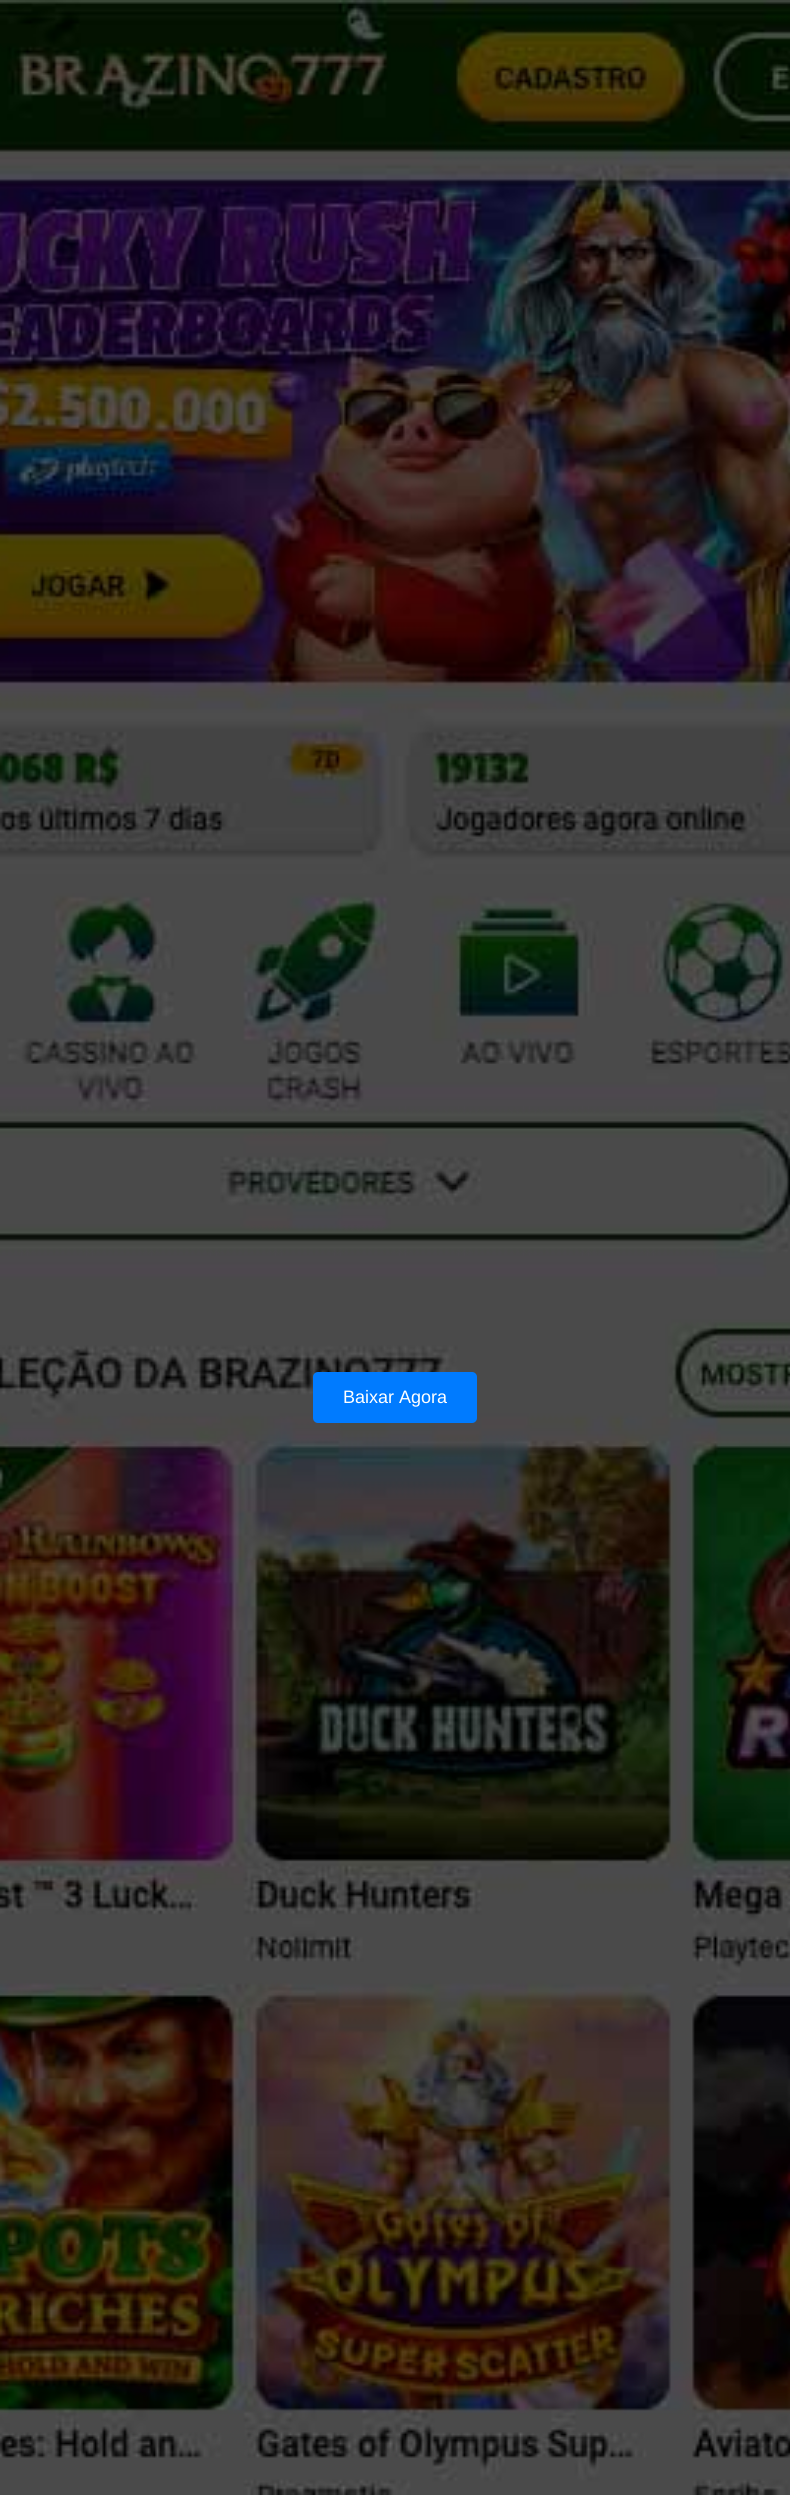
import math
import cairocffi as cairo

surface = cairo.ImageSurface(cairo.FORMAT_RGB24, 790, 2495)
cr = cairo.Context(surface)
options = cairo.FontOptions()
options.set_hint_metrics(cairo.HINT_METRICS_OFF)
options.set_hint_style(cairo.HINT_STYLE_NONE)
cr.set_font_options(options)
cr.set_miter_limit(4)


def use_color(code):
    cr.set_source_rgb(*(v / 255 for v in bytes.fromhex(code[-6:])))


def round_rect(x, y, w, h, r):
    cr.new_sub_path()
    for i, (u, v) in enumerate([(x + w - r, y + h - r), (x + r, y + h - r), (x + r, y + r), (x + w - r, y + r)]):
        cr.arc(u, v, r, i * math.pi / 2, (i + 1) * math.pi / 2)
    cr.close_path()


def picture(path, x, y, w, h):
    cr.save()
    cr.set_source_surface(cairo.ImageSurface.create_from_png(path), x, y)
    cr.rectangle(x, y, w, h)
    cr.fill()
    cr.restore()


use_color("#ffffff")
cr.paint()
picture("img1.png", 0, 0, 790, 2495)
use_color("#007bff")
round_rect(313, 1372, 164, 51, 5)
cr.fill()
cr.select_font_face("Liberation Sans")
cr.set_font_size(18)
use_color("#ffffff")
cr.move_to(343, 1403)
cr.show_text("Baixar Agora")
surface.write_to_png("result.png")
